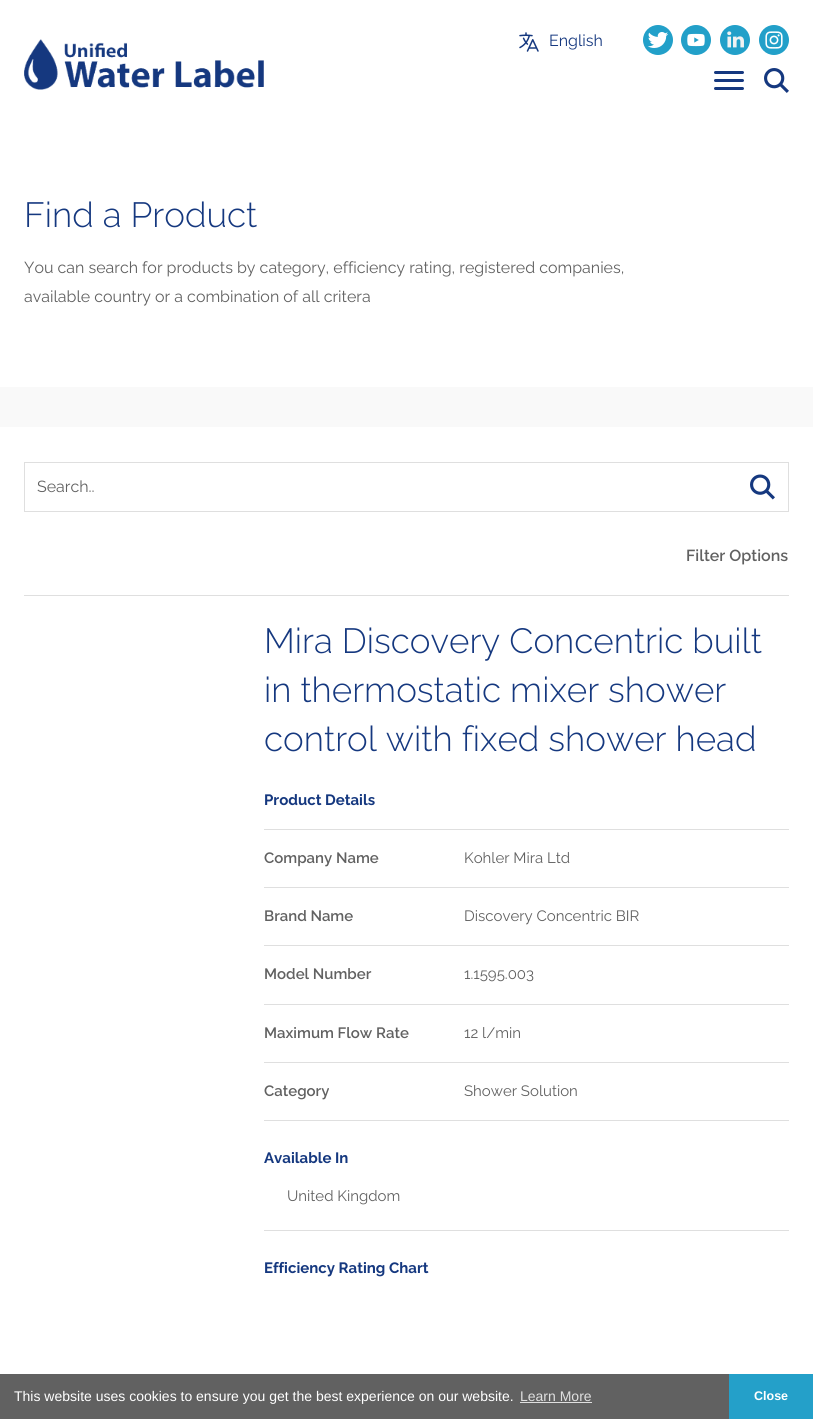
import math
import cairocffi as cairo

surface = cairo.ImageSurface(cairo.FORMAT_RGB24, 813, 1419)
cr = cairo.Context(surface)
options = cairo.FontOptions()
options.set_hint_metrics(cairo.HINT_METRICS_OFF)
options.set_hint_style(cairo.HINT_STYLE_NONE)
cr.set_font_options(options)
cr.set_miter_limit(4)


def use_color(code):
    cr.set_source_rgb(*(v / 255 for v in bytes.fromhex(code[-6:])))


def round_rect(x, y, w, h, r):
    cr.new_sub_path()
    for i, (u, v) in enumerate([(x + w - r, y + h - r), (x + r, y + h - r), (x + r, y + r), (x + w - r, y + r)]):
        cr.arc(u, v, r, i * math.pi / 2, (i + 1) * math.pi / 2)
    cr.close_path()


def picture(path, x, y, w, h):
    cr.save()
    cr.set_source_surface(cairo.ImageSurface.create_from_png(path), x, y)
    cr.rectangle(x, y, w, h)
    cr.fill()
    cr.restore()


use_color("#ffffff")
cr.paint()
picture("img1.png", 24, 39, 240, 51)
picture("img2.png", 519, 32, 20, 20)
cr.select_font_face("Raleway")
cr.set_font_size(16)
use_color("#15387f")
cr.move_to(549, 46)
cr.show_text("English")
picture("img3.png", 643, 25, 30, 30)
picture("img4.png", 681, 25, 30, 30)
picture("img5.png", 720, 25, 30, 30)
picture("img6.png", 759, 25, 30, 30)
round_rect(714, 71, 30, 3, 1.5)
cr.fill()
round_rect(714, 79, 30, 3, 1.5)
cr.fill()
round_rect(714, 87, 30, 3, 1.5)
cr.fill()
picture("img7.png", 764, 68, 25, 25)
cr.select_font_face("Raleway Light")
cr.set_font_size(35)
cr.move_to(24, 227)
cr.show_text("Find a Product")
cr.select_font_face("Raleway")
cr.set_font_size(16)
use_color("#616161")
cr.move_to(24, 273)
cr.show_text("You can search for products by category, efficiency rating, registered companies,")
cr.move_to(24, 302)
cr.show_text("available country or a combination of all critera")
use_color("#f9f9f9")
cr.rectangle(0, 387, 813, 40)
cr.fill()
cr.rectangle(24.5, 462.5, 764, 49)
use_color("#dfdfdf")
cr.set_line_width(1)
cr.stroke()
use_color("#616161")
cr.move_to(37, 492)
cr.show_text("Search..")
picture("img8.png", 750, 474, 25, 26)
use_color("#dfdfdf")
cr.rectangle(24, 595, 765, 1)
cr.fill()
cr.select_font_face("Raleway SemiBold")
use_color("#616161")
cr.move_to(686, 561)
cr.show_text("Filter Options")
cr.select_font_face("Raleway Light")
cr.set_font_size(35)
use_color("#15387f")
cr.move_to(264, 653)
cr.show_text("Mira Discovery Concentric built")
cr.move_to(264, 702)
cr.show_text("in thermostatic mixer shower")
cr.move_to(264, 751)
cr.show_text("control with fixed shower head")
cr.select_font_face("Raleway", cairo.FONT_SLANT_NORMAL, cairo.FONT_WEIGHT_BOLD)
cr.set_font_size(15)
cr.move_to(264, 805)
cr.show_text("Product Details")
use_color("#dfdfdf")
cr.rectangle(264, 829, 525, 1)
cr.fill()
cr.select_font_face("Raleway SemiBold")
use_color("#616161")
cr.move_to(264, 863)
cr.show_text("Company Name")
cr.select_font_face("Raleway")
cr.move_to(464, 863)
cr.show_text("Kohler Mira Ltd")
use_color("#dfdfdf")
cr.rectangle(264, 887, 525, 1)
cr.fill()
cr.select_font_face("Raleway SemiBold")
use_color("#616161")
cr.move_to(264, 921)
cr.show_text("Brand Name")
cr.select_font_face("Raleway")
cr.move_to(464, 921)
cr.show_text("Discovery Concentric BIR")
use_color("#dfdfdf")
cr.rectangle(264, 945, 525, 1)
cr.fill()
cr.select_font_face("Raleway SemiBold")
use_color("#616161")
cr.move_to(264, 979)
cr.show_text("Model Number")
cr.select_font_face("Raleway")
cr.move_to(464, 979)
cr.show_text("1.1595.003")
use_color("#dfdfdf")
cr.rectangle(264, 1004, 525, 1)
cr.fill()
cr.select_font_face("Raleway SemiBold")
use_color("#616161")
cr.move_to(264, 1038)
cr.show_text("Maximum Flow Rate")
cr.select_font_face("Raleway")
cr.move_to(464, 1038)
cr.show_text("12 l/min")
use_color("#dfdfdf")
cr.rectangle(264, 1062, 525, 1)
cr.fill()
cr.select_font_face("Raleway SemiBold")
use_color("#616161")
cr.move_to(264, 1096)
cr.show_text("Category")
cr.select_font_face("Raleway")
cr.move_to(464, 1096)
cr.show_text("Shower Solution")
use_color("#dfdfdf")
cr.rectangle(264, 1120, 525, 1)
cr.fill()
cr.select_font_face("Raleway", cairo.FONT_SLANT_NORMAL, cairo.FONT_WEIGHT_BOLD)
use_color("#15387f")
cr.move_to(264, 1163)
cr.show_text("Available In")
cr.select_font_face("Raleway")
use_color("#616161")
cr.move_to(287, 1201)
cr.show_text("United Kingdom")
use_color("#dfdfdf")
cr.rectangle(264, 1230, 525, 1)
cr.fill()
cr.select_font_face("Raleway", cairo.FONT_SLANT_NORMAL, cairo.FONT_WEIGHT_BOLD)
use_color("#15387f")
cr.move_to(264, 1273)
cr.show_text("Efficiency Rating Chart")
use_color("#616161")
cr.rectangle(0, 1374, 729, 45)
cr.fill()
cr.select_font_face("Liberation Sans")
cr.set_font_size(14)
use_color("#ffffff")
cr.move_to(14, 1401)
cr.show_text("This website uses cookies to ensure you get the best experience on our website.")
use_color("#dfdfdf")
cr.move_to(520, 1401)
cr.show_text("Learn More")
cr.rectangle(520, 1402, 72, 1)
cr.fill()
use_color("#24a0c9")
cr.rectangle(729, 1374, 84, 45)
cr.fill()
cr.select_font_face("Liberation Sans", cairo.FONT_SLANT_NORMAL, cairo.FONT_WEIGHT_BOLD)
cr.set_font_size(12.5)
use_color("#ffffff")
cr.move_to(754, 1400)
cr.show_text("Close")
surface.write_to_png("result.png")
